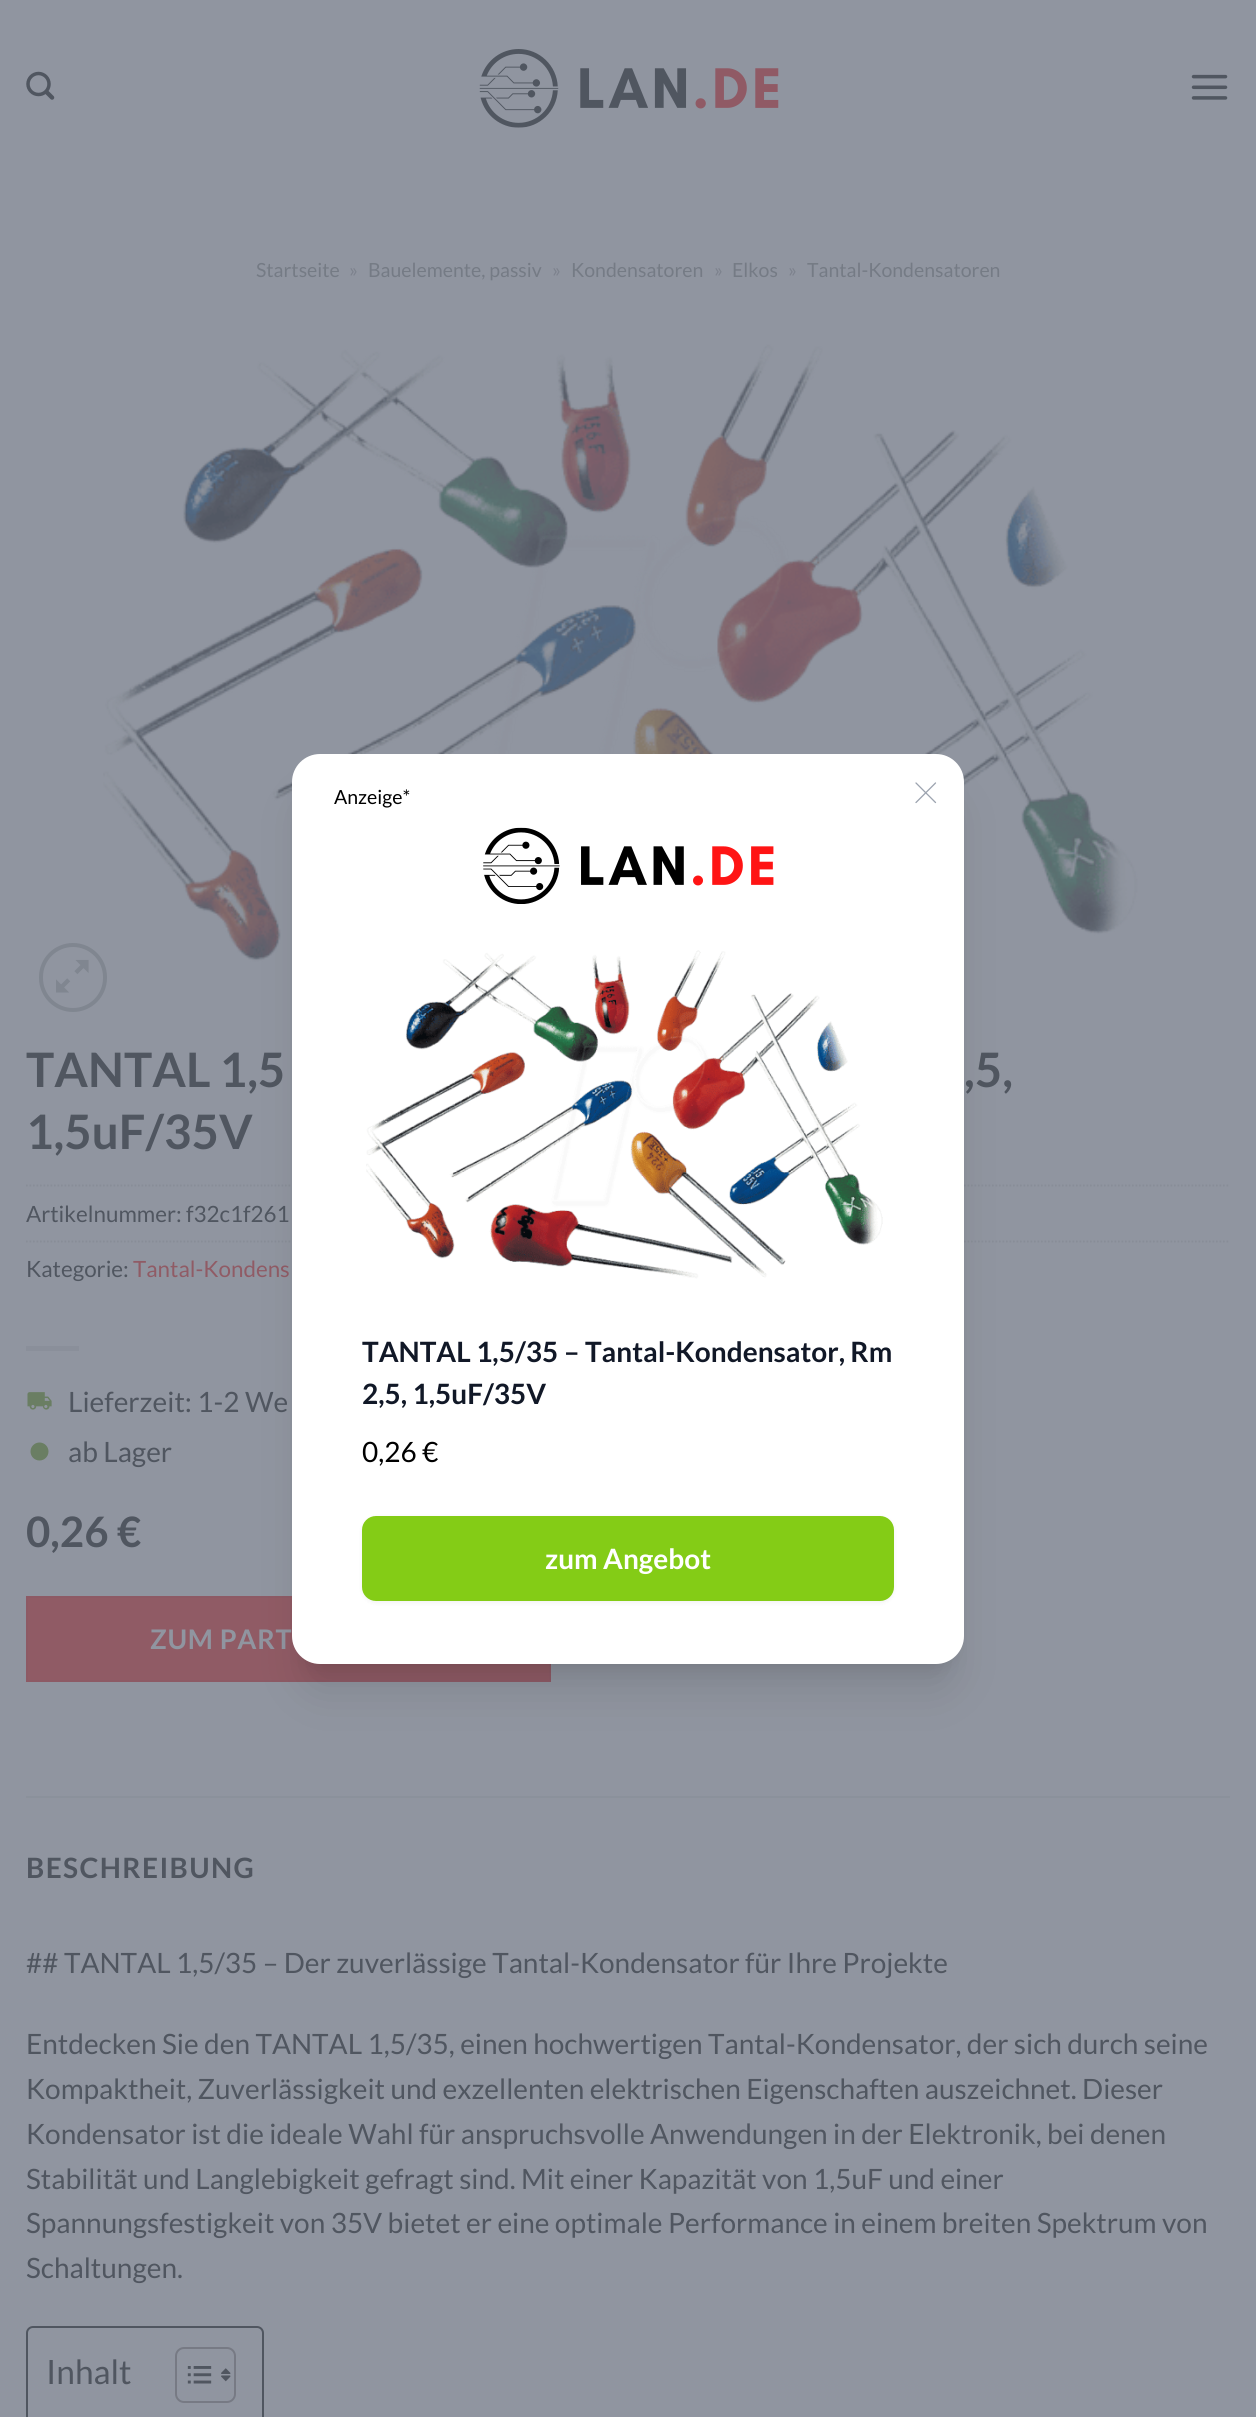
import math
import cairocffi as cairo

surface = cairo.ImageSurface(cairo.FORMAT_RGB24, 1256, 2417)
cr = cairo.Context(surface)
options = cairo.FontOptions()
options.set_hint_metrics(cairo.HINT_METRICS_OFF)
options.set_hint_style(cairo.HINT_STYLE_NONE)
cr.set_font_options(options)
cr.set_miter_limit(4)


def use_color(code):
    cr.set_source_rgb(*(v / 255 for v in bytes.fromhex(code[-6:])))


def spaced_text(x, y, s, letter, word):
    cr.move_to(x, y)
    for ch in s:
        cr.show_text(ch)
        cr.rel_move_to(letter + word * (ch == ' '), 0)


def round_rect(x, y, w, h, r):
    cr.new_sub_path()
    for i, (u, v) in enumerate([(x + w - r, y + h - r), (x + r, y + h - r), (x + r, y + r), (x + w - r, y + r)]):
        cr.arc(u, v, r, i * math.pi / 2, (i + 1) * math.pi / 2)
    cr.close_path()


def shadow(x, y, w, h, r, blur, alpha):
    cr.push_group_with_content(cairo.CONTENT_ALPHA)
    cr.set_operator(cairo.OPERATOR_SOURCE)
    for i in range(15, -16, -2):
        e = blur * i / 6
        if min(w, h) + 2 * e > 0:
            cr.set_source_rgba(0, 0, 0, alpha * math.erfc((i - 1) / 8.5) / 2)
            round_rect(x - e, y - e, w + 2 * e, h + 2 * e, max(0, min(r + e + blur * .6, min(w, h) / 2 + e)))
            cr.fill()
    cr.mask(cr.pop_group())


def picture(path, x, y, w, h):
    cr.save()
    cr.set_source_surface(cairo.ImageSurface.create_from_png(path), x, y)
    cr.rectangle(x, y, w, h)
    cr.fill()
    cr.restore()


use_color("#9095a0")
cr.paint()
picture("img1.png", 26, 71, 29, 29)
picture("img2.png", 479, 49, 300, 79)
picture("img3.png", 1191, 74, 37, 26)
cr.select_font_face("Lato")
cr.set_font_size(19.5)
use_color("#757b85")
cr.move_to(256, 277)
cr.show_text("Startseite")
use_color("#7d828d")
cr.move_to(349, 277)
cr.show_text("»")
use_color("#757b85")
cr.move_to(368, 277)
cr.show_text("Bauelemente, passiv")
use_color("#7d828d")
cr.move_to(552, 277)
cr.show_text("»")
use_color("#757b85")
cr.move_to(571, 277)
cr.show_text("Kondensatoren")
use_color("#7d828d")
cr.move_to(714, 277)
cr.show_text("»")
use_color("#757b85")
cr.move_to(732, 277)
cr.show_text("Elkos")
use_color("#7d828d")
cr.move_to(788, 277)
cr.show_text("»")
use_color("#757b85")
cr.move_to(807, 277)
cr.show_text("Tantal-Kondensatoren")
picture("img4.png", 103, 344, 1035, 618)
round_rect(41, 945, 64, 65, 32)
use_color("#808690")
cr.set_line_width(4)
cr.stroke()
picture("img5.png", 56, 959, 33, 34)
cr.select_font_face("Lato", cairo.FONT_SLANT_NORMAL, cairo.FONT_WEIGHT_BOLD)
cr.set_font_size(47.5)
use_color("#505660")
cr.move_to(26, 1087)
cr.show_text("TANTAL 1,5")
cr.move_to(964, 1087)
cr.show_text(",5,")
cr.move_to(26, 1149)
cr.show_text("1,5uF/35V")
cr.new_path()
cr.move_to(26, 1185.5)
cr.line_to(1230, 1185.5)
use_color("#888d97")
cr.set_line_width(1.8)
cr.set_dash([1.75, 1.75])
cr.stroke()
cr.select_font_face("Lato")
cr.set_font_size(22.4)
use_color("#505660")
cr.move_to(26, 1222)
cr.show_text("Artikelnummer: f32c1f261")
cr.new_path()
cr.move_to(26, 1241.5)
cr.line_to(1230, 1241.5)
use_color("#888d97")
cr.stroke()
use_color("#505660")
cr.move_to(26, 1277)
cr.show_text("Kategorie:")
use_color("#905b65")
cr.move_to(133, 1277)
cr.show_text("Tantal-Kondens")
use_color("#8a8f9a")
cr.rectangle(26, 1346, 53, 5)
cr.fill()
picture("img6.png", 27, 1392, 25, 18)
cr.set_font_size(28)
use_color("#505660")
cr.move_to(68, 1412)
cr.show_text("Lieferzeit: 1-2 We")
use_color("#6a7e63")
cr.new_path()
cr.arc(39.5, 1451.5, 9, 0, 2 * math.pi)
cr.fill()
use_color("#505660")
cr.move_to(68, 1462)
cr.show_text("ab Lager")
cr.select_font_face("Lato", cairo.FONT_SLANT_NORMAL, cairo.FONT_WEIGHT_BOLD)
cr.set_font_size(42)
cr.move_to(26, 1547)
cr.show_text("0,26 €")
use_color("#905b65")
cr.rectangle(27, 1597, 523, 84)
cr.fill_preserve()
use_color("#8d5a65")
cr.set_line_width(2)
cr.set_dash([])
cr.stroke()
cr.set_font_size(27)
use_color("#9095a0")
spaced_text(150, 1649, "ZUM PART", 0.75, 0)
use_color("#8b919b")
cr.rectangle(26, 1796, 1204, 2)
cr.fill()
cr.set_font_size(28)
use_color("#505660")
spaced_text(26, 1878, "BESCHREIBUNG", 1.4, 0)
cr.select_font_face("Lato")
cr.move_to(26, 1973)
cr.show_text("## TANTAL 1,5/35 – Der zuverlässige Tantal-Kondensator für Ihre Projekte")
cr.move_to(26, 2054)
cr.show_text("Entdecken Sie den TANTAL 1,5/35, einen hochwertigen Tantal-Kondensator, der sich durch seine")
cr.move_to(26, 2099)
cr.show_text("Kompaktheit, Zuverlässigkeit und exzellenten elektrischen Eigenschaften auszeichnet. Dieser")
cr.move_to(26, 2144)
cr.show_text("Kondensator ist die ideale Wahl für anspruchsvolle Anwendungen in der Elektronik, bei denen")
cr.move_to(26, 2189)
cr.show_text("Stabilität und Langlebigkeit gefragt sind. Mit einer Kapazität von 1,5uF und einer")
cr.move_to(26, 2233)
cr.show_text("Spannungsfestigkeit von 35V bietet er eine optimale Performance in einem breiten Spektrum von")
cr.move_to(26, 2278)
cr.show_text("Schaltungen.")
round_rect(27, 2327, 236, 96, 6)
cr.stroke()
cr.set_font_size(33.5)
cr.move_to(46, 2384)
cr.show_text("Inhalt")
round_rect(176, 2348, 59, 54, 8)
use_color("#777a84")
cr.stroke()
picture("img7.png", 187, 2366, 25, 18)
picture("img8.png", 221, 2368, 10, 14)
use_color("#000000")
shadow(303, 779, 651, 889, 18, 9, 0.1)
shadow(301, 798, 655, 893, 19, 22, 0.1)
use_color("#ffffff")
round_rect(292, 754, 672, 910, 28)
cr.fill()
cr.set_font_size(19.5)
use_color("#000000")
cr.move_to(334, 804)
cr.show_text("Anzeige*")
cr.new_path()
cr.move_to(916, 802.5)
cr.line_to(935.5, 783)
cr.move_to(916, 783)
cr.line_to(935.5, 802.5)
use_color("#9ca3af")
cr.set_line_width(1.3)
cr.set_line_cap(cairo.LINE_CAP_ROUND)
cr.set_line_join(cairo.LINE_JOIN_ROUND)
cr.stroke()
picture("img9.png", 483, 827, 291, 77)
picture("img10.png", 366, 950, 517, 329)
cr.select_font_face("Lato", cairo.FONT_SLANT_NORMAL, cairo.FONT_WEIGHT_BOLD)
cr.set_font_size(28)
use_color("#111827")
cr.move_to(362, 1362)
cr.show_text("TANTAL 1,5/35 – Tantal-Kondensator, Rm")
cr.move_to(362, 1404)
cr.show_text("2,5, 1,5uF/35V")
cr.select_font_face("Lato")
use_color("#000000")
cr.move_to(362, 1462)
cr.show_text("0,26 €")
use_color("#000000")
shadow(362, 1517, 532, 86, 14, 2, 0.05)
use_color("#84cc16")
round_rect(362, 1516, 532, 85, 14)
cr.fill()
cr.select_font_face("Lato", cairo.FONT_SLANT_NORMAL, cairo.FONT_WEIGHT_BOLD)
use_color("#ffffff")
cr.move_to(545, 1569)
cr.show_text("zum Angebot")
surface.write_to_png("result.png")
